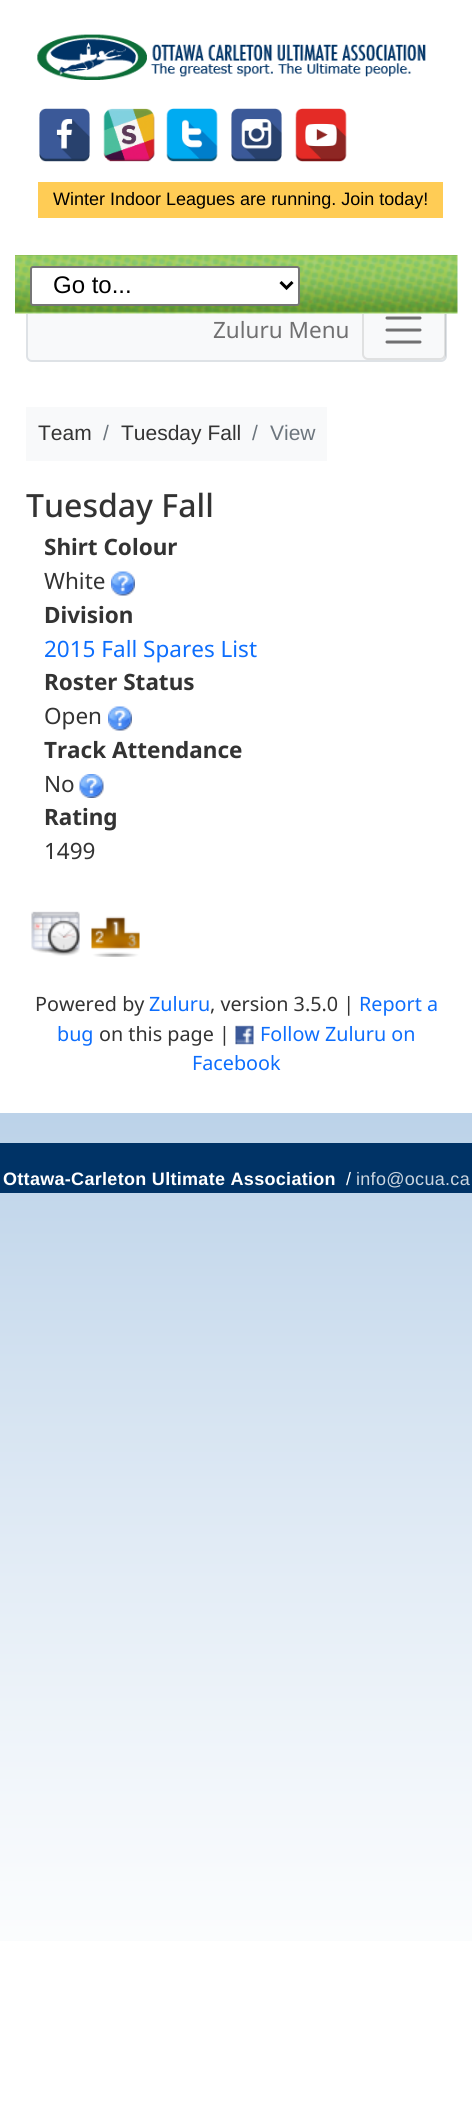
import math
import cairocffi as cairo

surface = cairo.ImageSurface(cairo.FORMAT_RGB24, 472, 2117)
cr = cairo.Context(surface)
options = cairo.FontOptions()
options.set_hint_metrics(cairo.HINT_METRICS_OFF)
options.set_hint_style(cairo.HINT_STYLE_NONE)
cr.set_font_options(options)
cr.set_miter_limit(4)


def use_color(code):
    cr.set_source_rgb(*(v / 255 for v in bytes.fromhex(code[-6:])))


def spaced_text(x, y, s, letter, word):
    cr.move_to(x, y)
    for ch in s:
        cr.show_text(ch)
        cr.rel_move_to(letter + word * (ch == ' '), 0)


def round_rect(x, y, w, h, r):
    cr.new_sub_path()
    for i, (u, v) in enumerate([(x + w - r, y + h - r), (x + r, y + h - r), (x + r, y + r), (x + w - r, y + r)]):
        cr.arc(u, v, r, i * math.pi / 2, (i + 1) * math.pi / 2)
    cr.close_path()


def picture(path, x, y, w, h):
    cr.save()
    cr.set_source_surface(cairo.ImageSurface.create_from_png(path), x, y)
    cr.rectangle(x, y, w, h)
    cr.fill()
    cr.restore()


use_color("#ffffff")
cr.paint()
picture("img1.png", 0, 1113, 472, 828)
use_color("#f8f9fa")
round_rect(27, 300, 419, 61, 5)
cr.fill_preserve()
use_color("#dee2e6")
cr.stroke()
round_rect(363, 301, 82, 58, 5)
cr.set_source_rgba(0, 0, 0, 0.1)
cr.stroke()
use_color("#ffffff")
cr.rectangle(26, 299, 421, 15)
cr.fill()
picture("img2.png", 37, 34, 389, 46)
picture("img3.png", 39, 108, 51, 54)
picture("img4.png", 103, 108, 52, 54)
picture("img5.png", 166, 108, 52, 54)
picture("img6.png", 231, 108, 51, 54)
picture("img7.png", 295, 108, 52, 54)
use_color("#ffcc55")
cr.rectangle(38, 182, 405, 36)
cr.fill()
cr.select_font_face("Liberation Sans")
cr.set_font_size(18)
use_color("#000000")
cr.move_to(53, 205)
cr.show_text("Winter Indoor Leagues are running. Join today!")
picture("img8.png", 15, 255, 443, 59)
use_color("#ffffff")
round_rect(31, 267, 268, 38, 2)
cr.fill_preserve()
use_color("#767676")
cr.stroke()
cr.new_path()
cr.move_to(280.5, 282)
cr.line_to(286.5, 288)
cr.line_to(292.5, 282)
use_color("#000000")
cr.set_line_width(3)
cr.stroke()
cr.set_font_size(24)
cr.move_to(53, 293)
cr.show_text("Go to...")
cr.select_font_face("Noto Sans")
cr.set_font_size(22.5)
use_color("#707071")
cr.move_to(213, 338)
cr.show_text("Zuluru Menu")
cr.new_path()
cr.move_to(387, 318)
cr.line_to(420, 318)
cr.move_to(387, 330)
cr.line_to(420, 330)
cr.move_to(387, 342)
cr.line_to(420, 342)
cr.set_line_cap(cairo.LINE_CAP_ROUND)
cr.stroke()
use_color("#f8f9fa")
cr.rectangle(26, 407, 301, 54)
cr.fill()
cr.select_font_face("Liberation Sans")
cr.set_font_size(21)
use_color("#333333")
cr.move_to(38, 440)
cr.show_text("Team")
use_color("#6c757d")
cr.move_to(103, 440)
cr.show_text("/")
use_color("#333333")
cr.move_to(121, 440)
cr.show_text("Tuesday Fall")
use_color("#6c757d")
cr.move_to(252, 440)
cr.show_text("/")
cr.move_to(270, 440)
cr.show_text("View")
cr.select_font_face("Noto Sans Medium")
cr.set_font_size(32)
use_color("#333333")
cr.move_to(26, 517)
cr.show_text("Tuesday Fall")
cr.select_font_face("Noto Sans", cairo.FONT_SLANT_NORMAL, cairo.FONT_WEIGHT_BOLD)
cr.set_font_size(22.5)
cr.move_to(44, 555)
cr.show_text("Shirt Colour")
cr.select_font_face("Noto Sans")
cr.move_to(44, 589)
cr.show_text("White")
picture("img9.png", 111, 571, 24, 25)
cr.select_font_face("Noto Sans", cairo.FONT_SLANT_NORMAL, cairo.FONT_WEIGHT_BOLD)
cr.move_to(44, 623)
cr.show_text("Division")
cr.select_font_face("Noto Sans")
use_color("#0d6efd")
cr.move_to(44, 657)
cr.show_text("2015 Fall Spares List")
cr.select_font_face("Noto Sans", cairo.FONT_SLANT_NORMAL, cairo.FONT_WEIGHT_BOLD)
use_color("#333333")
cr.move_to(44, 690)
cr.show_text("Roster Status")
cr.select_font_face("Noto Sans")
cr.move_to(44, 724)
cr.show_text("Open")
picture("img9.png", 108, 706, 24, 25)
cr.select_font_face("Noto Sans", cairo.FONT_SLANT_NORMAL, cairo.FONT_WEIGHT_BOLD)
cr.move_to(44, 758)
cr.show_text("Track Attendance")
cr.select_font_face("Noto Sans")
cr.move_to(44, 792)
cr.show_text("No")
picture("img10.png", 79, 774, 25, 24)
cr.select_font_face("Noto Sans", cairo.FONT_SLANT_NORMAL, cairo.FONT_WEIGHT_BOLD)
cr.move_to(44, 825)
cr.show_text("Rating")
cr.select_font_face("Noto Sans")
cr.move_to(44, 859)
cr.show_text("1499")
picture("img11.png", 31, 911, 49, 45)
picture("img12.png", 91, 916, 49, 41)
cr.set_font_size(19.75)
cr.move_to(35, 1011)
cr.show_text("Powered by")
use_color("#0d6efd")
cr.move_to(149, 1011)
cr.show_text("Zuluru")
use_color("#333333")
cr.move_to(210, 1011)
cr.show_text(", version 3.5.0 |")
use_color("#0d6efd")
cr.move_to(359, 1011)
cr.show_text("Report a")
cr.move_to(57, 1041)
cr.show_text("bug")
use_color("#333333")
cr.move_to(99, 1041)
cr.show_text("on this page |")
picture("img13.png", 235, 1025, 19, 20)
use_color("#0d6efd")
cr.move_to(260, 1041)
cr.show_text("Follow Zuluru on")
cr.move_to(192, 1070)
cr.show_text("Facebook")
use_color("#003366")
cr.rectangle(0, 1143, 472, 50)
cr.fill()
cr.select_font_face("Liberation Sans", cairo.FONT_SLANT_NORMAL, cairo.FONT_WEIGHT_BOLD)
cr.set_font_size(18)
use_color("#ffffff")
spaced_text(3, 1185, "Ottawa-Carleton Ultimate Association", 0.3, 0)
cr.select_font_face("Liberation Sans")
spaced_text(346, 1185, "/", 0.3, 0)
use_color("#ccd6e0")
spaced_text(356, 1185, "info@ocua.ca", 0.3, 0)
surface.write_to_png("result.png")
